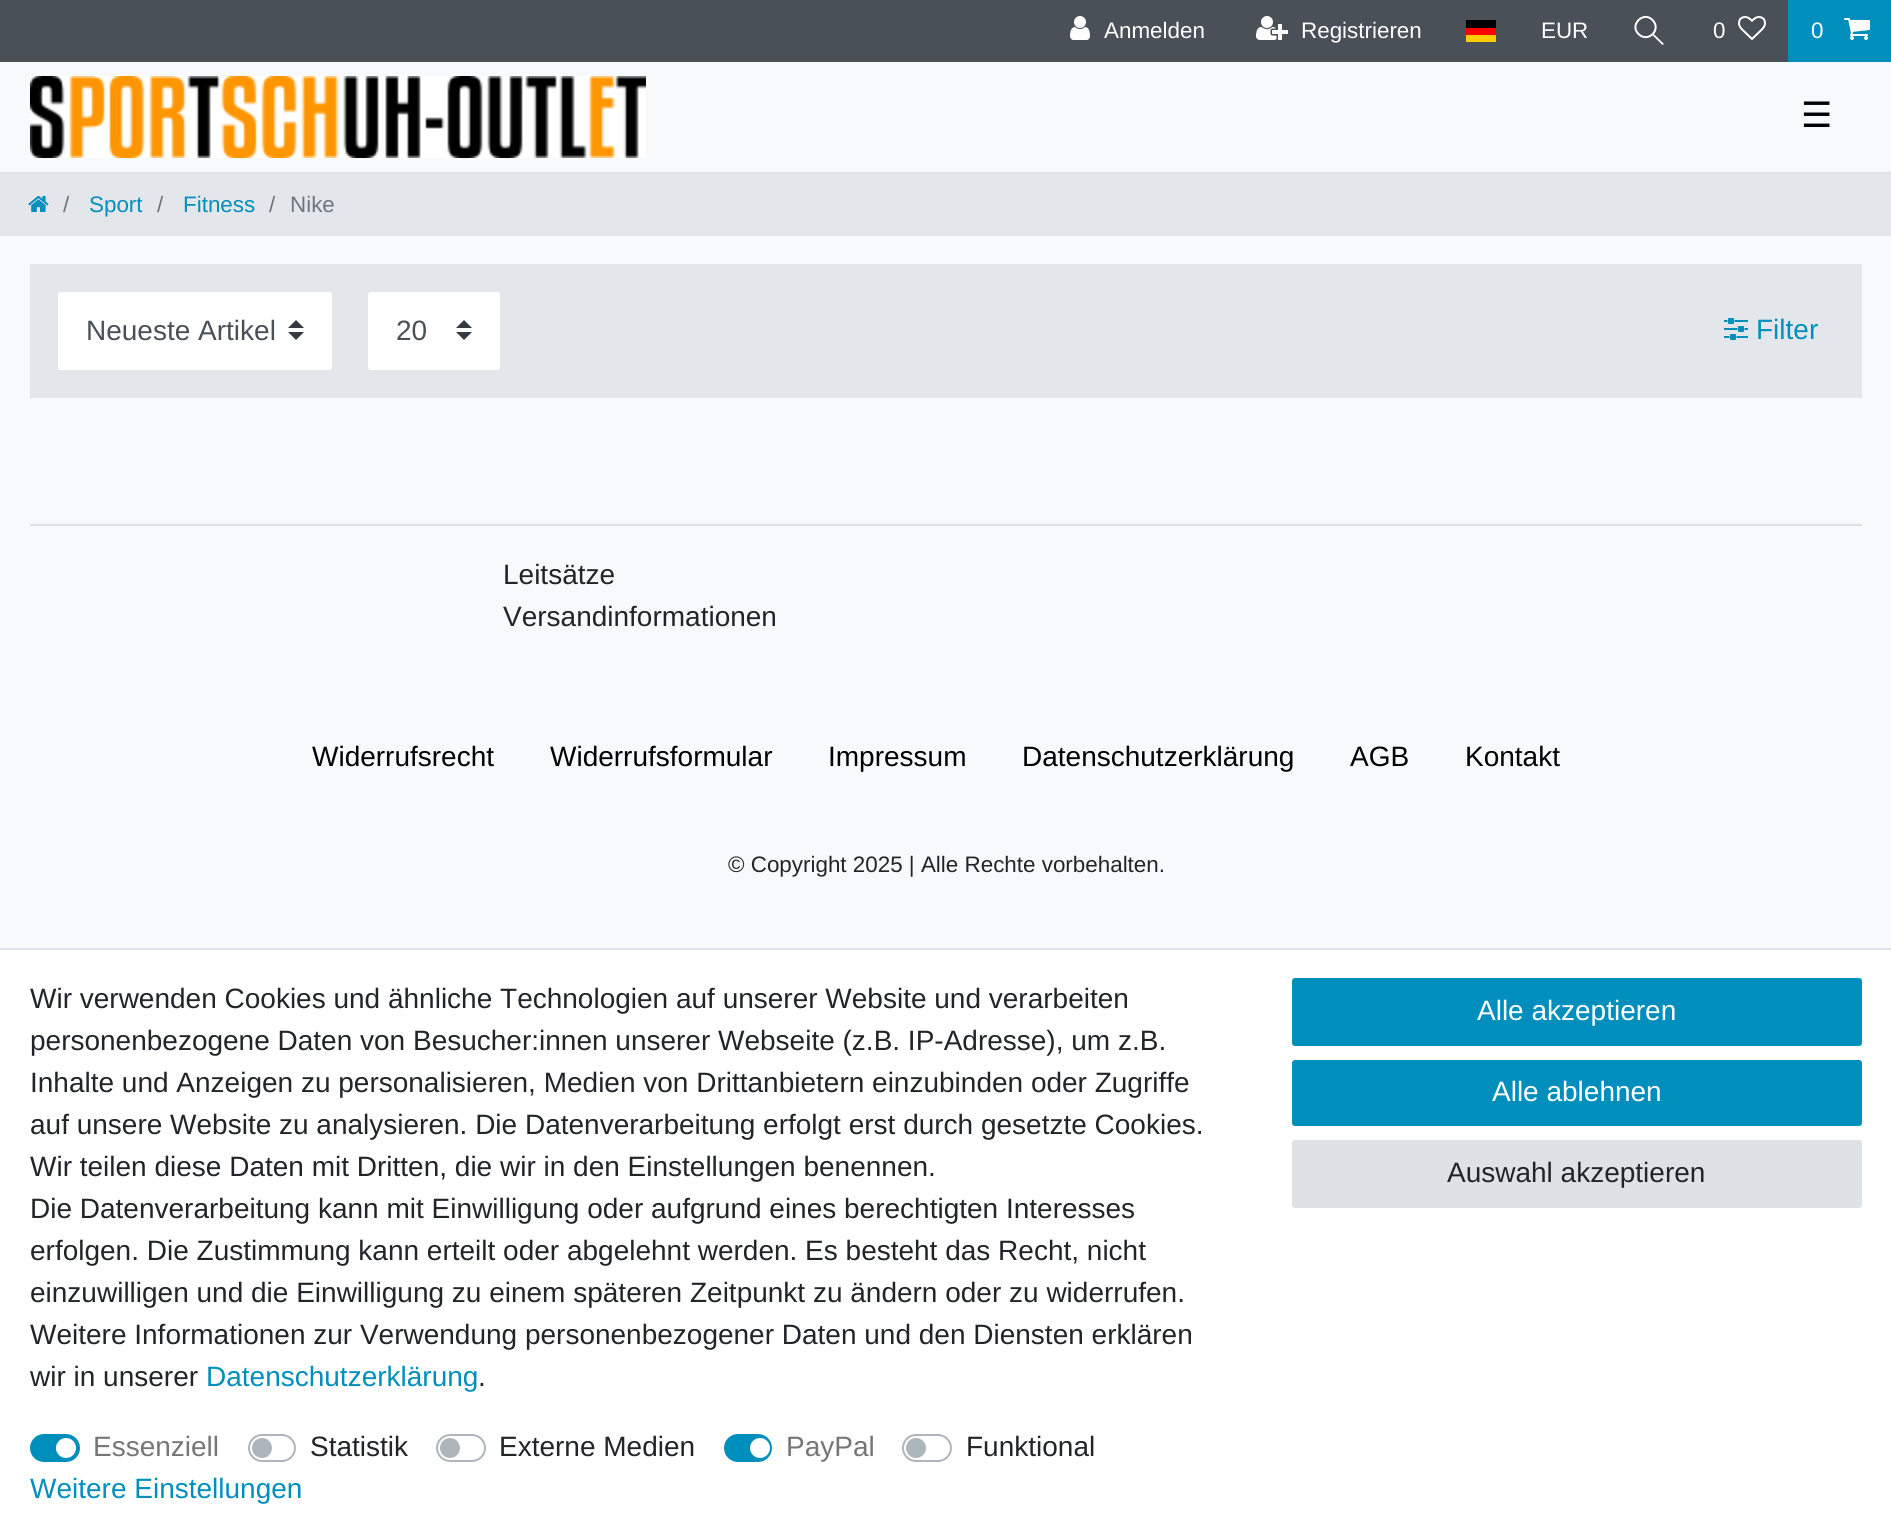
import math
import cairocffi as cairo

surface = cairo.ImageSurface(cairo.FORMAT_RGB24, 1891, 1537)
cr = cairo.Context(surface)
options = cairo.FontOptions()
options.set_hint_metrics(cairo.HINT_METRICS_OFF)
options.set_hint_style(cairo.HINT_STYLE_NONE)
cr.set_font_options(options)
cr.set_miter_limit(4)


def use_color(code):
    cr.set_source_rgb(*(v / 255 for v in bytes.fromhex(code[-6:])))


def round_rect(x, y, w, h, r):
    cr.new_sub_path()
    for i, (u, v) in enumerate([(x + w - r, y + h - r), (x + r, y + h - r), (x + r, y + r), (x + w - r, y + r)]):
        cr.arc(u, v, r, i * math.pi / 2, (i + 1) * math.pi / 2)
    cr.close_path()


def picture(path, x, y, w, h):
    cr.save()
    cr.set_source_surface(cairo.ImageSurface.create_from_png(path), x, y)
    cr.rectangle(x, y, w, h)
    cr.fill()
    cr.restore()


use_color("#f8f9fa")
cr.paint()
use_color("#495057")
cr.rectangle(0, 0, 1788, 62)
cr.fill()
picture("img1.png", 1070, 16, 20, 24)
cr.select_font_face("Liberation Sans")
cr.set_font_size(22.4)
use_color("#ffffff")
cr.move_to(1104, 38)
cr.show_text("Anmelden")
picture("img2.png", 1256, 16, 32, 24)
cr.move_to(1301, 38)
cr.show_text("Registrieren")
use_color("#ffcc00")
cr.rectangle(1466, 35, 30, 7)
cr.fill()
use_color("#000000")
cr.rectangle(1466, 20, 30, 8)
cr.fill()
use_color("#ff0000")
cr.rectangle(1466, 28, 30, 7)
cr.fill()
use_color("#ffffff")
cr.move_to(1541, 38)
cr.show_text("EUR")
cr.new_path()
cr.move_to(1662, 44.5)
cr.line_to(1642, 25)
cr.line_to(1642, 24)
cr.curve_to(1642, 23.5, 1642.5, 23, 1643, 23.5)
cr.line_to(1663.5, 43.5)
cr.curve_to(1664, 44.5, 1662.5, 45.5, 1662, 44.5)
cr.close_path()
cr.fill()
use_color("#495057")
cr.new_path()
cr.move_to(1638, 35)
cr.curve_to(1627.5, 24.5, 1643, 9, 1653.5, 19.5)
cr.curve_to(1663.5, 29.5, 1648, 45, 1638, 35)
cr.close_path()
cr.fill()
cr.new_path()
cr.move_to(1638.5, 34)
cr.curve_to(1629, 25, 1643.5, 10.5, 1652.5, 20)
cr.curve_to(1662, 29.5, 1648, 43.5, 1638.5, 34)
cr.close_path()
use_color("#ffffff")
cr.stroke()
cr.move_to(1713, 38)
cr.show_text("0")
picture("img3.png", 1738, 16, 28, 24)
use_color("#008ebd")
cr.rectangle(1788, 0, 103, 62)
cr.fill()
use_color("#ffffff")
cr.move_to(1811, 38)
cr.show_text("0")
picture("img4.png", 1844, 18, 26, 22)
use_color("#dee2e6")
cr.rectangle(0, 172, 1891, 2)
cr.fill()
picture("img5.png", 30, 76, 616, 82)
cr.select_font_face("DejaVu Sans")
cr.set_font_size(35)
use_color("#000000")
cr.move_to(1801, 127)
cr.show_text("☰")
use_color("#e3e7eb")
cr.rectangle(0, 174, 1891, 62)
cr.fill()
picture("img6.png", 28, 196, 21, 16)
cr.select_font_face("Liberation Sans")
cr.set_font_size(22.4)
use_color("#6c757d")
cr.move_to(63, 212)
cr.show_text("/")
use_color("#008ebd")
cr.move_to(89, 212)
cr.show_text("Sport")
use_color("#6c757d")
cr.move_to(157, 212)
cr.show_text("/")
use_color("#008ebd")
cr.move_to(183, 212)
cr.show_text("Fitness")
use_color("#6c757d")
cr.move_to(269, 212)
cr.show_text("/")
cr.move_to(290, 212)
cr.show_text("Nike")
use_color("#e3e7eb")
cr.rectangle(30, 264, 1832, 134)
cr.fill()
use_color("#ffffff")
round_rect(58, 292, 274, 78, 3)
cr.fill()
use_color("#343a40")
cr.new_path()
cr.move_to(296, 320)
cr.line_to(288, 328)
cr.line_to(304, 328)
cr.close_path()
cr.move_to(296, 340)
cr.line_to(288, 332)
cr.line_to(304, 332)
cr.close_path()
cr.fill()
cr.set_font_size(28)
use_color("#495057")
cr.move_to(86, 340)
cr.show_text("Neueste Artikel")
use_color("#ffffff")
round_rect(368, 292, 132, 78, 3)
cr.fill()
use_color("#343a40")
cr.new_path()
cr.move_to(464, 320)
cr.line_to(456, 328)
cr.line_to(472, 328)
cr.close_path()
cr.move_to(464, 340)
cr.line_to(456, 332)
cr.line_to(472, 332)
cr.close_path()
cr.fill()
use_color("#495057")
cr.move_to(396, 340)
cr.show_text("20")
picture("img7.png", 1724, 318, 24, 22)
use_color("#008ebd")
cr.move_to(1756, 339)
cr.show_text("Filter")
use_color("#dee2e6")
cr.rectangle(30, 524, 1832, 2)
cr.fill()
use_color("#212529")
cr.move_to(503, 584)
cr.show_text("Leitsätze")
cr.move_to(503, 626)
cr.show_text("Versandinformationen")
use_color("#000000")
cr.move_to(312, 766)
cr.show_text("Widerrufsrecht")
cr.move_to(550, 766)
cr.show_text("Widerrufsformular")
cr.move_to(828, 766)
cr.show_text("Impressum")
cr.move_to(1022, 766)
cr.show_text("Datenschutzerklärung")
cr.move_to(1350, 766)
cr.show_text("AGB")
cr.move_to(1465, 766)
cr.show_text("Kontakt")
cr.set_font_size(22.4)
use_color("#212529")
cr.move_to(728, 872)
cr.show_text("© Copyright 2025 | Alle Rechte vorbehalten.")
use_color("#ffffff")
cr.rectangle(0, 950, 1891, 587)
cr.fill()
use_color("#dee2e6")
cr.rectangle(0, 948, 1891, 2)
cr.fill()
cr.set_font_size(28)
use_color("#212529")
cr.move_to(30, 1008)
cr.show_text("Wir verwenden Cookies und ähnliche Technologien auf unserer Website und verarbeiten")
cr.move_to(30, 1050)
cr.show_text("personenbezogene Daten von Besucher:innen unserer Webseite (z.B. IP-Adresse), um z.B.")
cr.move_to(30, 1092)
cr.show_text("Inhalte und Anzeigen zu personalisieren, Medien von Drittanbietern einzubinden oder Zugriffe")
cr.move_to(30, 1134)
cr.show_text("auf unsere Website zu analysieren. Die Datenverarbeitung erfolgt erst durch gesetzte Cookies.")
cr.move_to(30, 1176)
cr.show_text("Wir teilen diese Daten mit Dritten, die wir in den Einstellungen benennen.")
cr.move_to(30, 1218)
cr.show_text("Die Datenverarbeitung kann mit Einwilligung oder aufgrund eines berechtigten Interesses")
cr.move_to(30, 1260)
cr.show_text("erfolgen. Die Zustimmung kann erteilt oder abgelehnt werden. Es besteht das Recht, nicht")
cr.move_to(30, 1302)
cr.show_text("einzuwilligen und die Einwilligung zu einem späteren Zeitpunkt zu ändern oder zu widerrufen.")
cr.move_to(30, 1344)
cr.show_text("Weitere Informationen zur Verwendung personenbezogener Daten und den Diensten erklären")
cr.move_to(30, 1386)
cr.show_text("wir in unserer")
use_color("#008ebd")
cr.move_to(206, 1386)
cr.show_text("Datenschutzerklärung")
use_color("#212529")
cr.move_to(478, 1386)
cr.show_text(".")
use_color("#008ebd")
round_rect(31, 1435, 48, 26, 13)
cr.fill_preserve()
cr.stroke()
use_color("#767676")
cr.move_to(93, 1456)
cr.show_text("Essenziell")
use_color("#ffffff")
cr.new_path()
cr.arc(66, 1448, 10, 0, 2 * math.pi)
cr.fill()
round_rect(249, 1435, 46, 26, 13)
use_color("#adb5bd")
cr.stroke()
use_color("#212529")
cr.move_to(310, 1456)
cr.show_text("Statistik")
use_color("#adb5bd")
cr.new_path()
cr.arc(262, 1448, 10, 0, 2 * math.pi)
cr.fill()
round_rect(437, 1435, 48, 26, 13)
cr.stroke()
use_color("#212529")
cr.move_to(499, 1456)
cr.show_text("Externe Medien")
use_color("#adb5bd")
cr.new_path()
cr.arc(450, 1448, 10, 0, 2 * math.pi)
cr.fill()
use_color("#008ebd")
round_rect(725, 1435, 46, 26, 13)
cr.fill_preserve()
cr.stroke()
use_color("#767676")
cr.move_to(786, 1456)
cr.show_text("PayPal")
use_color("#ffffff")
cr.new_path()
cr.arc(760, 1448, 10, 0, 2 * math.pi)
cr.fill()
round_rect(903, 1435, 48, 26, 13)
use_color("#adb5bd")
cr.stroke()
use_color("#212529")
cr.move_to(966, 1456)
cr.show_text("Funktional")
use_color("#adb5bd")
cr.new_path()
cr.arc(916, 1448, 10, 0, 2 * math.pi)
cr.fill()
use_color("#008ebd")
cr.move_to(30, 1498)
cr.show_text("Weitere Einstellungen")
round_rect(1293, 979, 568, 66, 2)
cr.fill_preserve()
cr.stroke()
use_color("#ffffff")
cr.move_to(1477, 1020)
cr.show_text("Alle akzeptieren")
use_color("#008ebd")
round_rect(1293, 1061, 568, 64, 2)
cr.fill_preserve()
cr.stroke()
use_color("#ffffff")
cr.move_to(1492, 1101)
cr.show_text("Alle ablehnen")
use_color("#dee2e6")
round_rect(1293, 1141, 568, 66, 2)
cr.fill_preserve()
cr.stroke()
use_color("#212529")
cr.move_to(1447, 1182)
cr.show_text("Auswahl akzeptieren")
surface.write_to_png("result.png")
